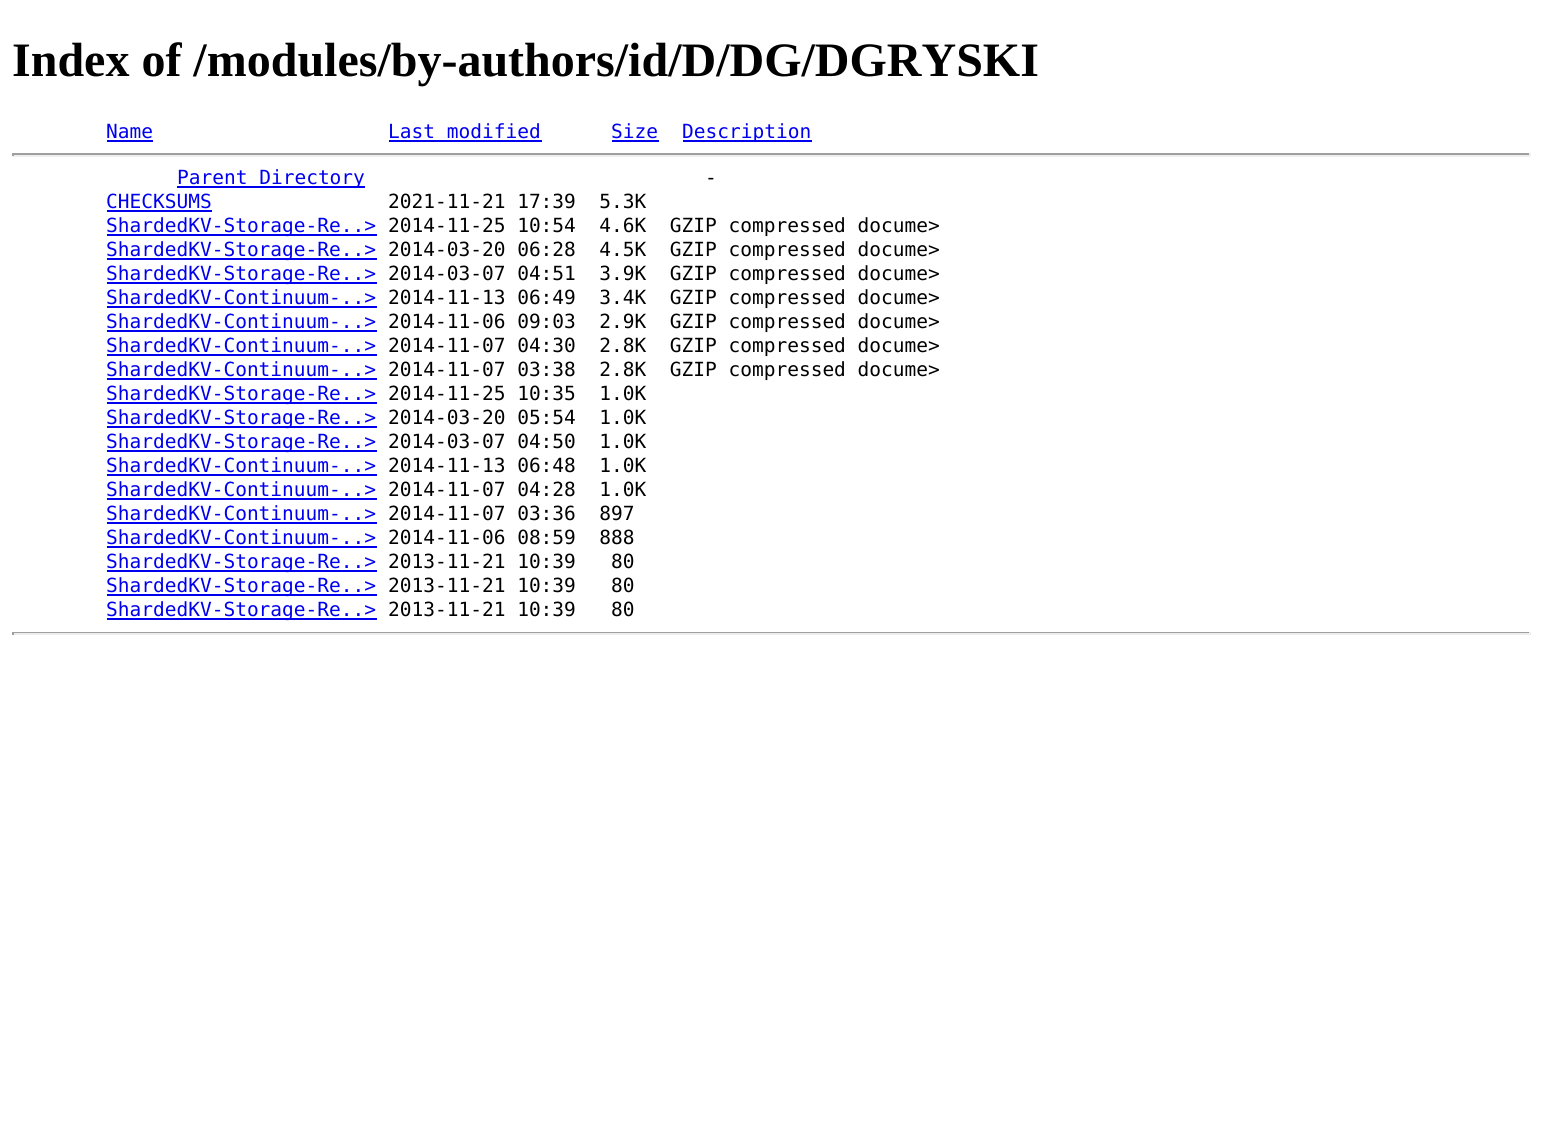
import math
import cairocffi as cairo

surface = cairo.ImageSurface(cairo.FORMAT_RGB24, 1542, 1139)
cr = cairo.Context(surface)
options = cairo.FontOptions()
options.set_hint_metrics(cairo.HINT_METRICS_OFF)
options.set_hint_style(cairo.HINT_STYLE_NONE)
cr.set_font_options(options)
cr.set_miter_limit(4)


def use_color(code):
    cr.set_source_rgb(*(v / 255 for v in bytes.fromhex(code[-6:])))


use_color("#ffffff")
cr.paint()
cr.select_font_face("Liberation Serif", cairo.FONT_SLANT_NORMAL, cairo.FONT_WEIGHT_BOLD)
cr.set_font_size(48)
use_color("#000000")
cr.move_to(12, 76)
cr.show_text("Index of /modules/by-authors/id/D/DG/DGRYSKI")
cr.select_font_face("DejaVu Sans Mono")
cr.set_font_size(19.5)
use_color("#0000ee")
cr.move_to(106, 138)
cr.show_text("Name")
cr.rectangle(107, 140, 46, 2)
cr.fill()
cr.move_to(388, 138)
cr.show_text("Last modified")
cr.rectangle(389, 140, 153, 2)
cr.fill()
cr.move_to(611, 138)
cr.show_text("Size")
cr.rectangle(612, 140, 47, 2)
cr.fill()
cr.rectangle(683, 140, 129, 2)
cr.fill()
cr.move_to(682, 138)
cr.show_text("Description")
use_color("#9f9f9f")
cr.rectangle(12, 153, 1518, 2)
cr.fill()
use_color("#eeeeee")
cr.rectangle(1529, 153, 2, 3)
cr.fill()
cr.rectangle(12, 155, 1518, 2)
cr.fill()
use_color("#9f9f9f")
cr.rectangle(12, 153, 2, 3)
cr.fill()
use_color("#0000ee")
cr.rectangle(177, 186, 188, 2)
cr.fill()
cr.move_to(177, 184)
cr.show_text("Parent Directory")
use_color("#000000")
cr.move_to(705, 184)
cr.show_text("-")
use_color("#0000ee")
cr.move_to(106, 208)
cr.show_text("CHECKSUMS")
cr.rectangle(107, 210, 105, 2)
cr.fill()
use_color("#000000")
cr.move_to(388, 208)
cr.show_text("2021-11-21 17:39  5.3K")
use_color("#0000ee")
cr.rectangle(107, 234, 270, 2)
cr.fill()
cr.move_to(106, 232)
cr.show_text("ShardedKV-Storage-Re..>")
use_color("#000000")
cr.move_to(388, 232)
cr.show_text("2014-11-25 10:54  4.6K  GZIP compressed docume>")
use_color("#0000ee")
cr.rectangle(107, 258, 270, 2)
cr.fill()
cr.move_to(106, 256)
cr.show_text("ShardedKV-Storage-Re..>")
use_color("#000000")
cr.move_to(388, 256)
cr.show_text("2014-03-20 06:28  4.5K  GZIP compressed docume>")
use_color("#0000ee")
cr.rectangle(107, 282, 270, 2)
cr.fill()
cr.move_to(106, 280)
cr.show_text("ShardedKV-Storage-Re..>")
use_color("#000000")
cr.move_to(388, 280)
cr.show_text("2014-03-07 04:51  3.9K  GZIP compressed docume>")
use_color("#0000ee")
cr.move_to(106, 304)
cr.show_text("ShardedKV-Continuum-..>")
cr.rectangle(107, 306, 270, 2)
cr.fill()
use_color("#000000")
cr.move_to(388, 304)
cr.show_text("2014-11-13 06:49  3.4K  GZIP compressed docume>")
use_color("#0000ee")
cr.move_to(106, 328)
cr.show_text("ShardedKV-Continuum-..>")
cr.rectangle(107, 330, 270, 2)
cr.fill()
use_color("#000000")
cr.move_to(388, 328)
cr.show_text("2014-11-06 09:03  2.9K  GZIP compressed docume>")
use_color("#0000ee")
cr.move_to(106, 352)
cr.show_text("ShardedKV-Continuum-..>")
cr.rectangle(107, 354, 270, 2)
cr.fill()
use_color("#000000")
cr.move_to(388, 352)
cr.show_text("2014-11-07 04:30  2.8K  GZIP compressed docume>")
use_color("#0000ee")
cr.move_to(106, 376)
cr.show_text("ShardedKV-Continuum-..>")
cr.rectangle(107, 378, 270, 2)
cr.fill()
use_color("#000000")
cr.move_to(388, 376)
cr.show_text("2014-11-07 03:38  2.8K  GZIP compressed docume>")
use_color("#0000ee")
cr.rectangle(107, 402, 270, 2)
cr.fill()
cr.move_to(106, 400)
cr.show_text("ShardedKV-Storage-Re..>")
use_color("#000000")
cr.move_to(388, 400)
cr.show_text("2014-11-25 10:35  1.0K")
use_color("#0000ee")
cr.rectangle(107, 426, 270, 2)
cr.fill()
cr.move_to(106, 424)
cr.show_text("ShardedKV-Storage-Re..>")
use_color("#000000")
cr.move_to(388, 424)
cr.show_text("2014-03-20 05:54  1.0K")
use_color("#0000ee")
cr.rectangle(107, 450, 270, 2)
cr.fill()
cr.move_to(106, 448)
cr.show_text("ShardedKV-Storage-Re..>")
use_color("#000000")
cr.move_to(388, 448)
cr.show_text("2014-03-07 04:50  1.0K")
use_color("#0000ee")
cr.move_to(106, 472)
cr.show_text("ShardedKV-Continuum-..>")
cr.rectangle(107, 474, 270, 2)
cr.fill()
use_color("#000000")
cr.move_to(388, 472)
cr.show_text("2014-11-13 06:48  1.0K")
use_color("#0000ee")
cr.move_to(106, 496)
cr.show_text("ShardedKV-Continuum-..>")
cr.rectangle(107, 498, 270, 2)
cr.fill()
use_color("#000000")
cr.move_to(388, 496)
cr.show_text("2014-11-07 04:28  1.0K")
use_color("#0000ee")
cr.move_to(106, 520)
cr.show_text("ShardedKV-Continuum-..>")
cr.rectangle(107, 522, 270, 2)
cr.fill()
use_color("#000000")
cr.move_to(388, 520)
cr.show_text("2014-11-07 03:36  897")
use_color("#0000ee")
cr.move_to(106, 544)
cr.show_text("ShardedKV-Continuum-..>")
cr.rectangle(107, 546, 270, 2)
cr.fill()
use_color("#000000")
cr.move_to(388, 544)
cr.show_text("2014-11-06 08:59  888")
use_color("#0000ee")
cr.rectangle(107, 570, 270, 2)
cr.fill()
cr.move_to(106, 568)
cr.show_text("ShardedKV-Storage-Re..>")
use_color("#000000")
cr.move_to(388, 568)
cr.show_text("2013-11-21 10:39   80")
use_color("#0000ee")
cr.rectangle(107, 594, 270, 2)
cr.fill()
cr.move_to(106, 592)
cr.show_text("ShardedKV-Storage-Re..>")
use_color("#000000")
cr.move_to(388, 592)
cr.show_text("2013-11-21 10:39   80")
use_color("#0000ee")
cr.rectangle(107, 618, 270, 2)
cr.fill()
cr.move_to(106, 616)
cr.show_text("ShardedKV-Storage-Re..>")
use_color("#000000")
cr.move_to(388, 616)
cr.show_text("2013-11-21 10:39   80")
use_color("#9f9f9f")
cr.rectangle(12, 632, 1518, 1)
cr.fill()
use_color("#eeeeee")
cr.rectangle(1529, 632, 2, 3)
cr.fill()
cr.rectangle(12, 633, 1518, 2)
cr.fill()
use_color("#9f9f9f")
cr.rectangle(12, 632, 2, 3)
cr.fill()
surface.write_to_png("result.png")
